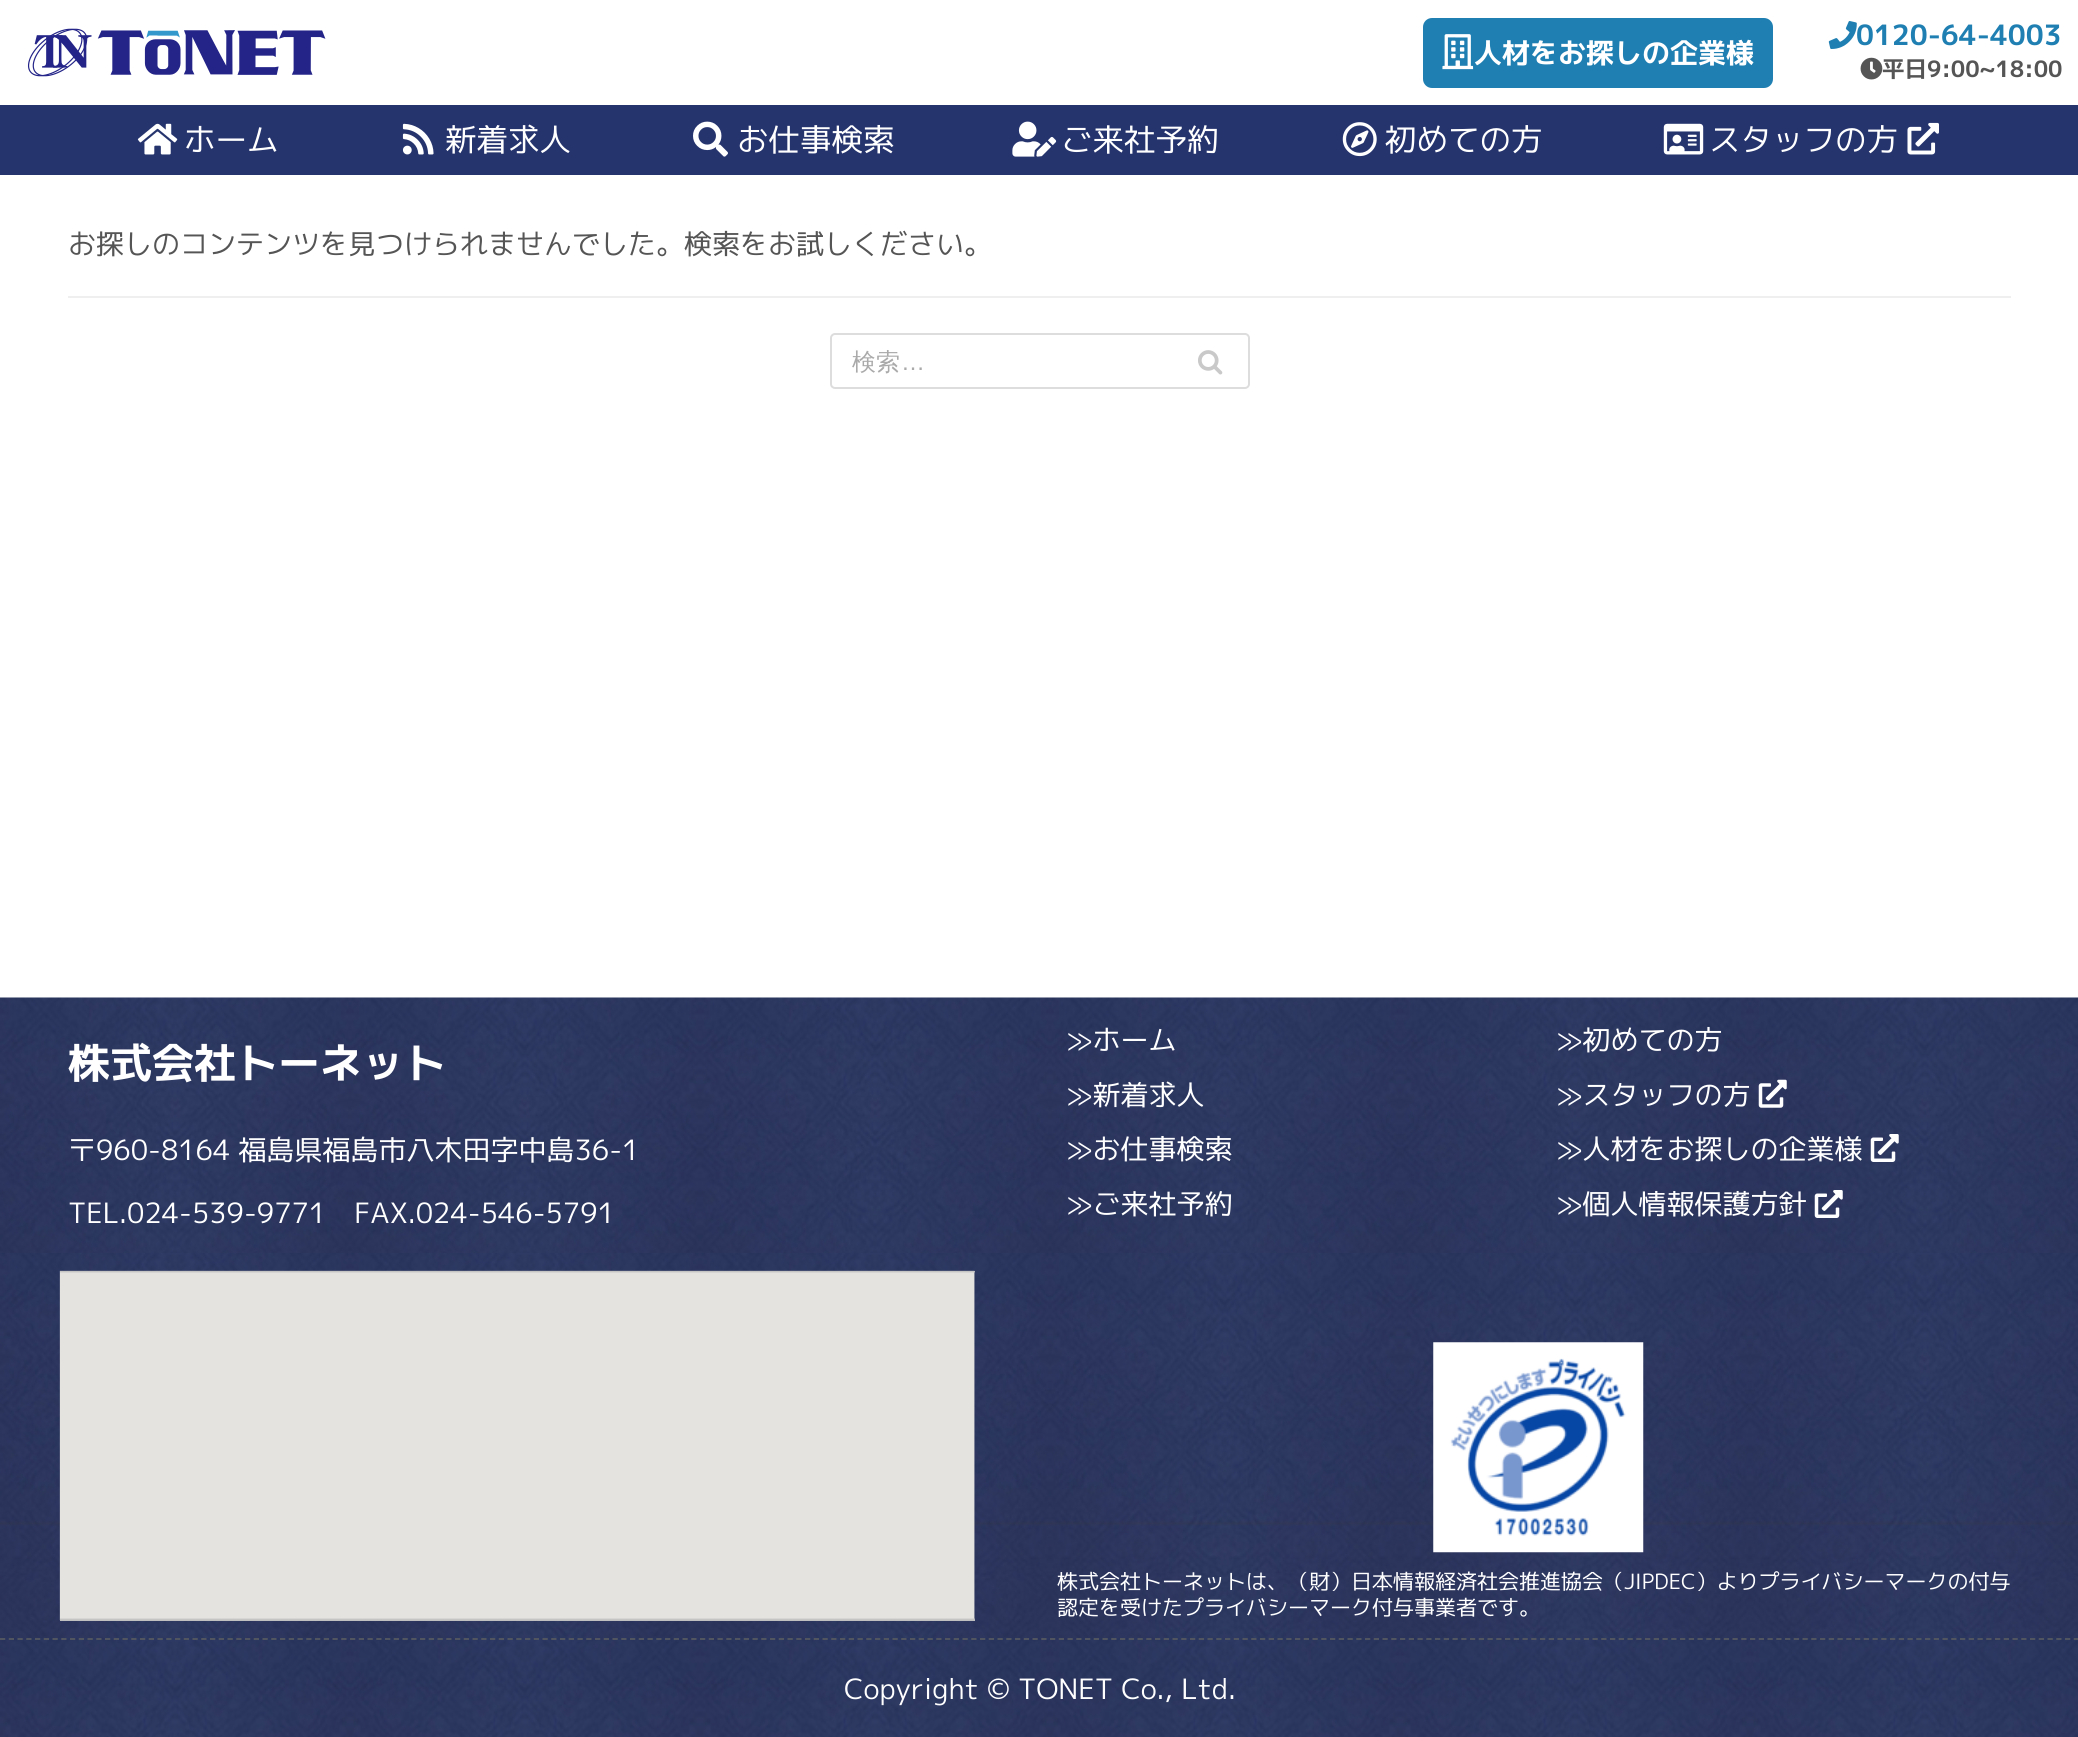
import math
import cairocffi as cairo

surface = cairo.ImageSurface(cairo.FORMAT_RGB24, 2078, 1737)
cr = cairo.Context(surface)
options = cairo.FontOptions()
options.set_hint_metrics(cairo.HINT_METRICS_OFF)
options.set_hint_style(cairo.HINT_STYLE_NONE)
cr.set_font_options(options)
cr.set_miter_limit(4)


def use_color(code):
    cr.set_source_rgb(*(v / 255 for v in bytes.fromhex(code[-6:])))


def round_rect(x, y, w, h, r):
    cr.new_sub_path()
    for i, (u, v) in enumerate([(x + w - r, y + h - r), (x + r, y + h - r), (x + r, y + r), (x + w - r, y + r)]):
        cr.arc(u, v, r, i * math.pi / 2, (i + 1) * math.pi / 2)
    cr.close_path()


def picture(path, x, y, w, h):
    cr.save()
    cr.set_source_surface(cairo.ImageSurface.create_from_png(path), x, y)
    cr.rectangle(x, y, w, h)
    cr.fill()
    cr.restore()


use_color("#ffffff")
cr.paint()
picture("img1.png", 27, 28, 299, 49)
use_color("#1f7fb2")
round_rect(1423, 18, 350, 70, 9)
cr.fill()
picture("img2.png", 1442, 34, 32, 36)
cr.select_font_face("M PLUS 1p", cairo.FONT_SLANT_NORMAL, cairo.FONT_WEIGHT_BOLD)
cr.set_font_size(28)
use_color("#ffffff")
cr.move_to(1474, 63)
cr.show_text("人材をお探しの企業様")
picture("img3.png", 1828, 21, 29, 28)
use_color("#1f7fb2")
cr.move_to(1856, 45)
cr.show_text("0120-64-4003")
picture("img4.png", 1860, 57, 23, 23)
cr.set_font_size(22.5)
use_color("#555555")
cr.move_to(1882, 77)
cr.show_text("平日9:00~18:00")
use_color("#26346e")
cr.rectangle(0, 105, 2078, 70)
cr.fill()
picture("img5.png", 137, 123, 41, 32)
cr.select_font_face("M PLUS 1p")
cr.set_font_size(31.5)
use_color("#ffffff")
cr.move_to(184, 151)
cr.show_text("ホーム")
picture("img6.png", 402, 123, 32, 32)
cr.move_to(445, 151)
cr.show_text("新着求人")
picture("img7.png", 693, 121, 35, 36)
cr.move_to(737, 151)
cr.show_text("お仕事検索")
picture("img8.png", 1012, 121, 45, 36)
cr.move_to(1061, 151)
cr.show_text("ご来社予約")
picture("img9.png", 1342, 122, 35, 35)
cr.move_to(1385, 151)
cr.show_text("初めての方")
picture("img10.png", 1663, 123, 41, 32)
cr.move_to(1709, 151)
cr.show_text("スタッフの方")
picture("img11.png", 1907, 122, 32, 33)
cr.set_font_size(28)
use_color("#555555")
cr.move_to(68, 254)
cr.show_text("お探しのコンテンツを見つけられませんでした。検索をお試しください。")
use_color("#efefef")
cr.rectangle(68, 296, 1943, 2)
cr.fill()
round_rect(831, 334, 418, 54, 4)
use_color("#dddddd")
cr.stroke()
cr.select_font_face("WenQuanYi Zen Hei Medium")
cr.set_font_size(24)
use_color("#aaaaaa")
cr.move_to(852, 370)
cr.show_text("検索")
cr.select_font_face("Liberation Sans")
cr.move_to(901, 370)
cr.show_text("…")
picture("img12.png", 1198, 350, 25, 25)
picture("img13.png", 0, 997, 2078, 256)
cr.select_font_face("M PLUS 1p", cairo.FONT_SLANT_NORMAL, cairo.FONT_WEIGHT_BOLD)
cr.set_font_size(42)
use_color("#ffffff")
cr.move_to(68, 1078)
cr.show_text("株式会社トーネット")
cr.select_font_face("M PLUS 1p")
cr.set_font_size(28)
cr.move_to(68, 1160)
cr.show_text("〒960-8164 福島県福島市八木田字中島36-1")
cr.move_to(68, 1223)
cr.show_text("TEL.024-539-9771　FAX.024-546-5791")
cr.move_to(1066, 1050)
cr.show_text("≫ホーム")
cr.move_to(1066, 1105)
cr.show_text("≫新着求人")
cr.move_to(1066, 1159)
cr.show_text("≫お仕事検索")
cr.move_to(1066, 1214)
cr.show_text("≫ご来社予約")
cr.move_to(1556, 1050)
cr.show_text("≫初めての方")
cr.move_to(1556, 1105)
cr.show_text("≫スタッフの方")
picture("img14.png", 1758, 1079, 29, 29)
cr.move_to(1556, 1159)
cr.show_text("≫人材をお探しの企業様")
picture("img15.png", 1870, 1134, 29, 28)
cr.move_to(1556, 1214)
cr.show_text("≫個人情報保護方針")
picture("img16.png", 1814, 1190, 29, 28)
picture("img17.png", 0, 1253, 2078, 385)
picture("img18.png", 59, 1270, 916, 351)
picture("img19.png", 1433, 1342, 211, 211)
cr.set_font_size(21)
cr.move_to(1057, 1589)
cr.show_text("株式会社トーネットは、（財）日本情報経済社会推進協会（JIPDEC）よりプライバシーマークの付与")
cr.move_to(1057, 1615)
cr.show_text("認定を受けたプライバシーマーク付与事業者です。")
picture("img20.png", 0, 1638, 2078, 99)
cr.new_path()
cr.move_to(0, 1639)
cr.line_to(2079, 1639)
use_color("#54595f")
cr.set_line_width(1.8)
cr.set_dash([5.25, 3.5])
cr.stroke()
cr.set_font_size(28)
use_color("#ffffff")
cr.move_to(844, 1699)
cr.show_text("Copyright © TONET Co., Ltd.")
surface.write_to_png("result.png")
